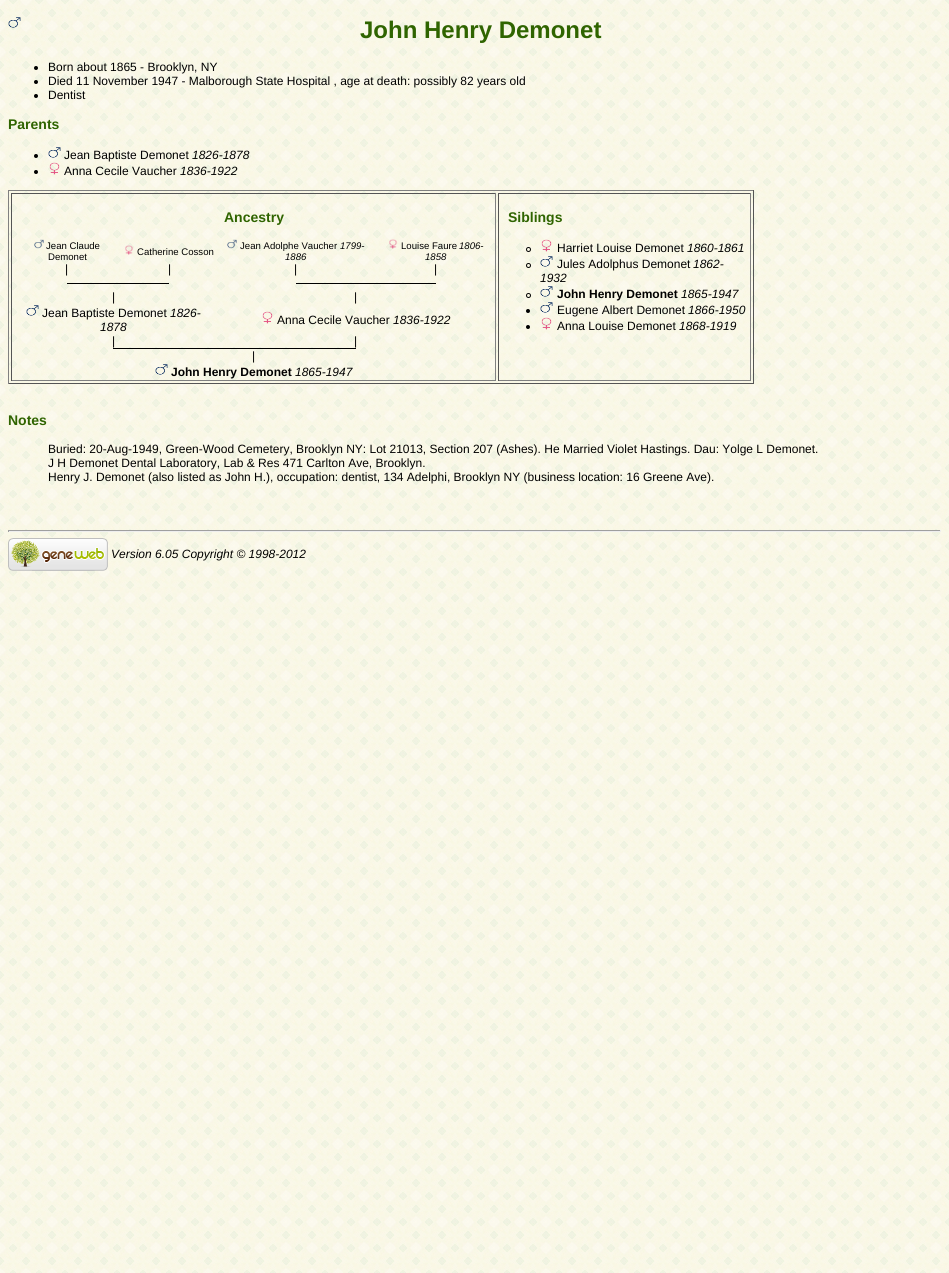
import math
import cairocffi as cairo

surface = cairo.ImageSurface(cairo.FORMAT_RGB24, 949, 1273)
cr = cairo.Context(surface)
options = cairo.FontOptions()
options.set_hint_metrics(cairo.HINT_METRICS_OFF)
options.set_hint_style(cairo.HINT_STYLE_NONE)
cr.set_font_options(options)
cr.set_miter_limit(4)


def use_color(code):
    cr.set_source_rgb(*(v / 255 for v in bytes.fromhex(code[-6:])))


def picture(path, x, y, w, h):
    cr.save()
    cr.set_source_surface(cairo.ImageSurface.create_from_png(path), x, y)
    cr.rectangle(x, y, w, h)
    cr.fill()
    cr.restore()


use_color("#ffffff")
cr.paint()
picture("img1.png", 0, 0, 949, 1273)
picture("img2.png", 8, 17, 13, 11)
cr.select_font_face("Liberation Sans", cairo.FONT_SLANT_NORMAL, cairo.FONT_WEIGHT_BOLD)
cr.set_font_size(24)
use_color("#2f6400")
cr.move_to(360, 38)
cr.show_text("John Henry Demonet")
use_color("#000000")
cr.new_path()
cr.arc(36, 68, 2, 0, 2 * math.pi)
cr.fill()
cr.select_font_face("Liberation Sans")
cr.set_font_size(12)
cr.move_to(48, 71)
cr.show_text("Born about 1865 - Brooklyn, NY")
cr.new_path()
cr.arc(36, 82, 2, 0, 2 * math.pi)
cr.fill()
cr.move_to(48, 85)
cr.show_text("Died 11 November 1947 - Malborough State Hospital , age at death: possibly 82 years old")
cr.new_path()
cr.arc(36, 96, 2, 0, 2 * math.pi)
cr.fill()
cr.move_to(48, 99)
cr.show_text("Dentist")
cr.select_font_face("Liberation Sans", cairo.FONT_SLANT_NORMAL, cairo.FONT_WEIGHT_BOLD)
cr.set_font_size(14)
use_color("#2f6400")
cr.move_to(8, 129)
cr.show_text("Parents")
use_color("#000000")
cr.new_path()
cr.arc(36, 156, 2, 0, 2 * math.pi)
cr.fill()
picture("img3.png", 48, 147, 13, 11)
cr.select_font_face("Liberation Sans")
cr.set_font_size(12)
cr.move_to(64, 159)
cr.show_text("Jean Baptiste Demonet")
cr.select_font_face("Liberation Sans", cairo.FONT_SLANT_ITALIC)
cr.move_to(192, 159)
cr.show_text("1826-1878")
cr.new_path()
cr.arc(36, 172, 2, 0, 2 * math.pi)
cr.fill()
picture("img4.png", 49, 162, 11, 13)
cr.select_font_face("Liberation Sans")
cr.move_to(64, 175)
cr.show_text("Anna Cecile Vaucher")
cr.select_font_face("Liberation Sans", cairo.FONT_SLANT_ITALIC)
cr.move_to(180, 175)
cr.show_text("1836-1922")
use_color("#808080")
cr.rectangle(8, 190, 746, 1)
cr.fill()
use_color("#555555")
cr.rectangle(753, 190, 1, 194)
cr.fill()
cr.rectangle(8, 383, 746, 1)
cr.fill()
use_color("#808080")
cr.rectangle(8, 190, 1, 194)
cr.fill()
use_color("#555555")
cr.rectangle(11, 193, 485, 1)
cr.fill()
use_color("#808080")
cr.rectangle(495, 193, 1, 188)
cr.fill()
cr.rectangle(11, 380, 485, 1)
cr.fill()
use_color("#555555")
cr.rectangle(11, 193, 1, 188)
cr.fill()
cr.select_font_face("Liberation Sans", cairo.FONT_SLANT_NORMAL, cairo.FONT_WEIGHT_BOLD)
cr.set_font_size(14)
use_color("#2f6400")
cr.move_to(224, 222)
cr.show_text("Ancestry")
picture("img5.png", 34, 239, 10, 10)
cr.select_font_face("Liberation Sans")
cr.set_font_size(9.6)
use_color("#000000")
cr.move_to(46, 249)
cr.show_text("Jean Claude")
cr.move_to(48, 260)
cr.show_text("Demonet")
picture("img6.png", 125, 245, 9, 10)
cr.move_to(137, 255)
cr.show_text("Catherine Cosson")
picture("img7.png", 227, 239, 10, 10)
cr.move_to(240, 249)
cr.show_text("Jean Adolphe Vaucher")
cr.select_font_face("Liberation Sans", cairo.FONT_SLANT_ITALIC)
cr.move_to(340, 249)
cr.show_text("1799-")
cr.move_to(285, 260)
cr.show_text("1886")
picture("img8.png", 389, 239, 9, 10)
cr.select_font_face("Liberation Sans")
cr.move_to(401, 249)
cr.show_text("Louise Faure")
cr.select_font_face("Liberation Sans", cairo.FONT_SLANT_ITALIC)
cr.move_to(459, 249)
cr.show_text("1806-")
cr.move_to(425, 260)
cr.show_text("1858")
cr.select_font_face("Liberation Sans")
cr.set_font_size(12)
cr.move_to(65, 273)
cr.show_text("|")
cr.move_to(168, 273)
cr.show_text("|")
cr.move_to(294, 273)
cr.show_text("|")
cr.move_to(434, 273)
cr.show_text("|")
cr.rectangle(67, 283, 102, 1)
cr.fill()
cr.rectangle(296, 283, 140, 1)
cr.fill()
cr.move_to(112, 301)
cr.show_text("|")
cr.move_to(354, 301)
cr.show_text("|")
picture("img9.png", 26, 305, 13, 11)
cr.move_to(42, 317)
cr.show_text("Jean Baptiste Demonet")
cr.select_font_face("Liberation Sans", cairo.FONT_SLANT_ITALIC)
cr.move_to(170, 317)
cr.show_text("1826-")
cr.move_to(100, 331)
cr.show_text("1878")
picture("img10.png", 262, 311, 11, 13)
cr.select_font_face("Liberation Sans")
cr.move_to(277, 324)
cr.show_text("Anna Cecile Vaucher")
cr.select_font_face("Liberation Sans", cairo.FONT_SLANT_ITALIC)
cr.move_to(393, 324)
cr.show_text("1836-1922")
cr.select_font_face("Liberation Sans")
cr.move_to(112, 345)
cr.show_text("|")
cr.move_to(354, 345)
cr.show_text("|")
cr.rectangle(113, 348, 243, 1)
cr.fill()
cr.move_to(252, 360)
cr.show_text("|")
picture("img11.png", 155, 364, 13, 11)
cr.select_font_face("Liberation Sans", cairo.FONT_SLANT_NORMAL, cairo.FONT_WEIGHT_BOLD)
cr.move_to(171, 376)
cr.show_text("John Henry Demonet")
cr.select_font_face("Liberation Sans", cairo.FONT_SLANT_ITALIC)
cr.move_to(295, 376)
cr.show_text("1865-1947")
use_color("#555555")
cr.rectangle(498, 193, 253, 1)
cr.fill()
use_color("#808080")
cr.rectangle(750, 193, 1, 188)
cr.fill()
cr.rectangle(498, 380, 253, 1)
cr.fill()
use_color("#555555")
cr.rectangle(498, 193, 1, 188)
cr.fill()
cr.select_font_face("Liberation Sans", cairo.FONT_SLANT_NORMAL, cairo.FONT_WEIGHT_BOLD)
cr.set_font_size(14)
use_color("#2f6400")
cr.move_to(508, 222)
cr.show_text("Siblings")
cr.new_path()
cr.arc(528.5, 249.5, 2, 0, 2 * math.pi)
use_color("#000000")
cr.set_line_width(1)
cr.stroke()
picture("img12.png", 541, 239, 11, 13)
cr.select_font_face("Liberation Sans")
cr.set_font_size(12)
cr.move_to(557, 252)
cr.show_text("Harriet Louise Demonet")
cr.select_font_face("Liberation Sans", cairo.FONT_SLANT_ITALIC)
cr.move_to(687, 252)
cr.show_text("1860-1861")
cr.new_path()
cr.arc(528.5, 265.5, 2, 0, 2 * math.pi)
cr.stroke()
picture("img13.png", 540, 256, 13, 11)
cr.select_font_face("Liberation Sans")
cr.move_to(557, 268)
cr.show_text("Jules Adolphus Demonet")
cr.select_font_face("Liberation Sans", cairo.FONT_SLANT_ITALIC)
cr.move_to(693, 268)
cr.show_text("1862-")
cr.move_to(540, 282)
cr.show_text("1932")
cr.new_path()
cr.arc(528.5, 295.5, 2, 0, 2 * math.pi)
cr.stroke()
picture("img14.png", 540, 286, 13, 11)
cr.select_font_face("Liberation Sans", cairo.FONT_SLANT_NORMAL, cairo.FONT_WEIGHT_BOLD)
cr.move_to(557, 298)
cr.show_text("John Henry Demonet")
cr.select_font_face("Liberation Sans", cairo.FONT_SLANT_ITALIC)
cr.move_to(681, 298)
cr.show_text("1865-1947")
cr.new_path()
cr.arc(528, 311, 2, 0, 2 * math.pi)
cr.fill()
picture("img15.png", 540, 302, 13, 11)
cr.select_font_face("Liberation Sans")
cr.move_to(557, 314)
cr.show_text("Eugene Albert Demonet")
cr.select_font_face("Liberation Sans", cairo.FONT_SLANT_ITALIC)
cr.move_to(688, 314)
cr.show_text("1866-1950")
cr.new_path()
cr.arc(528, 327, 2, 0, 2 * math.pi)
cr.fill()
picture("img12.png", 541, 317, 11, 13)
cr.select_font_face("Liberation Sans")
cr.move_to(557, 330)
cr.show_text("Anna Louise Demonet")
cr.select_font_face("Liberation Sans", cairo.FONT_SLANT_ITALIC)
cr.move_to(679, 330)
cr.show_text("1868-1919")
cr.select_font_face("Liberation Sans", cairo.FONT_SLANT_NORMAL, cairo.FONT_WEIGHT_BOLD)
cr.set_font_size(14)
use_color("#2f6400")
cr.move_to(8, 425)
cr.show_text("Notes")
cr.select_font_face("Liberation Sans")
cr.set_font_size(12)
use_color("#000000")
cr.move_to(48, 453)
cr.show_text("Buried: 20-Aug-1949, Green-Wood Cemetery, Brooklyn NY: Lot 21013, Section 207 (Ashes). He Married Violet Hastings. Dau: Yolge L Demonet.")
cr.move_to(48, 467)
cr.show_text("J H Demonet Dental Laboratory, Lab & Res 471 Carlton Ave, Brooklyn.")
cr.move_to(48, 481)
cr.show_text("Henry J. Demonet (also listed as John H.), occupation: dentist, 134 Adelphi, Brooklyn NY (business location: 16 Greene Ave).")
use_color("#9f9f9f")
cr.rectangle(8, 530, 933, 1)
cr.fill()
use_color("#eeeeee")
cr.rectangle(940, 530, 1, 2)
cr.fill()
cr.rectangle(8, 531, 933, 1)
cr.fill()
use_color("#9f9f9f")
cr.rectangle(8, 530, 1, 2)
cr.fill()
picture("img16.png", 8, 538, 100, 33)
cr.select_font_face("Liberation Sans", cairo.FONT_SLANT_ITALIC)
use_color("#000000")
cr.move_to(111, 558)
cr.show_text("Version 6.05 Copyright © 1998-2012")
surface.write_to_png("result.png")
